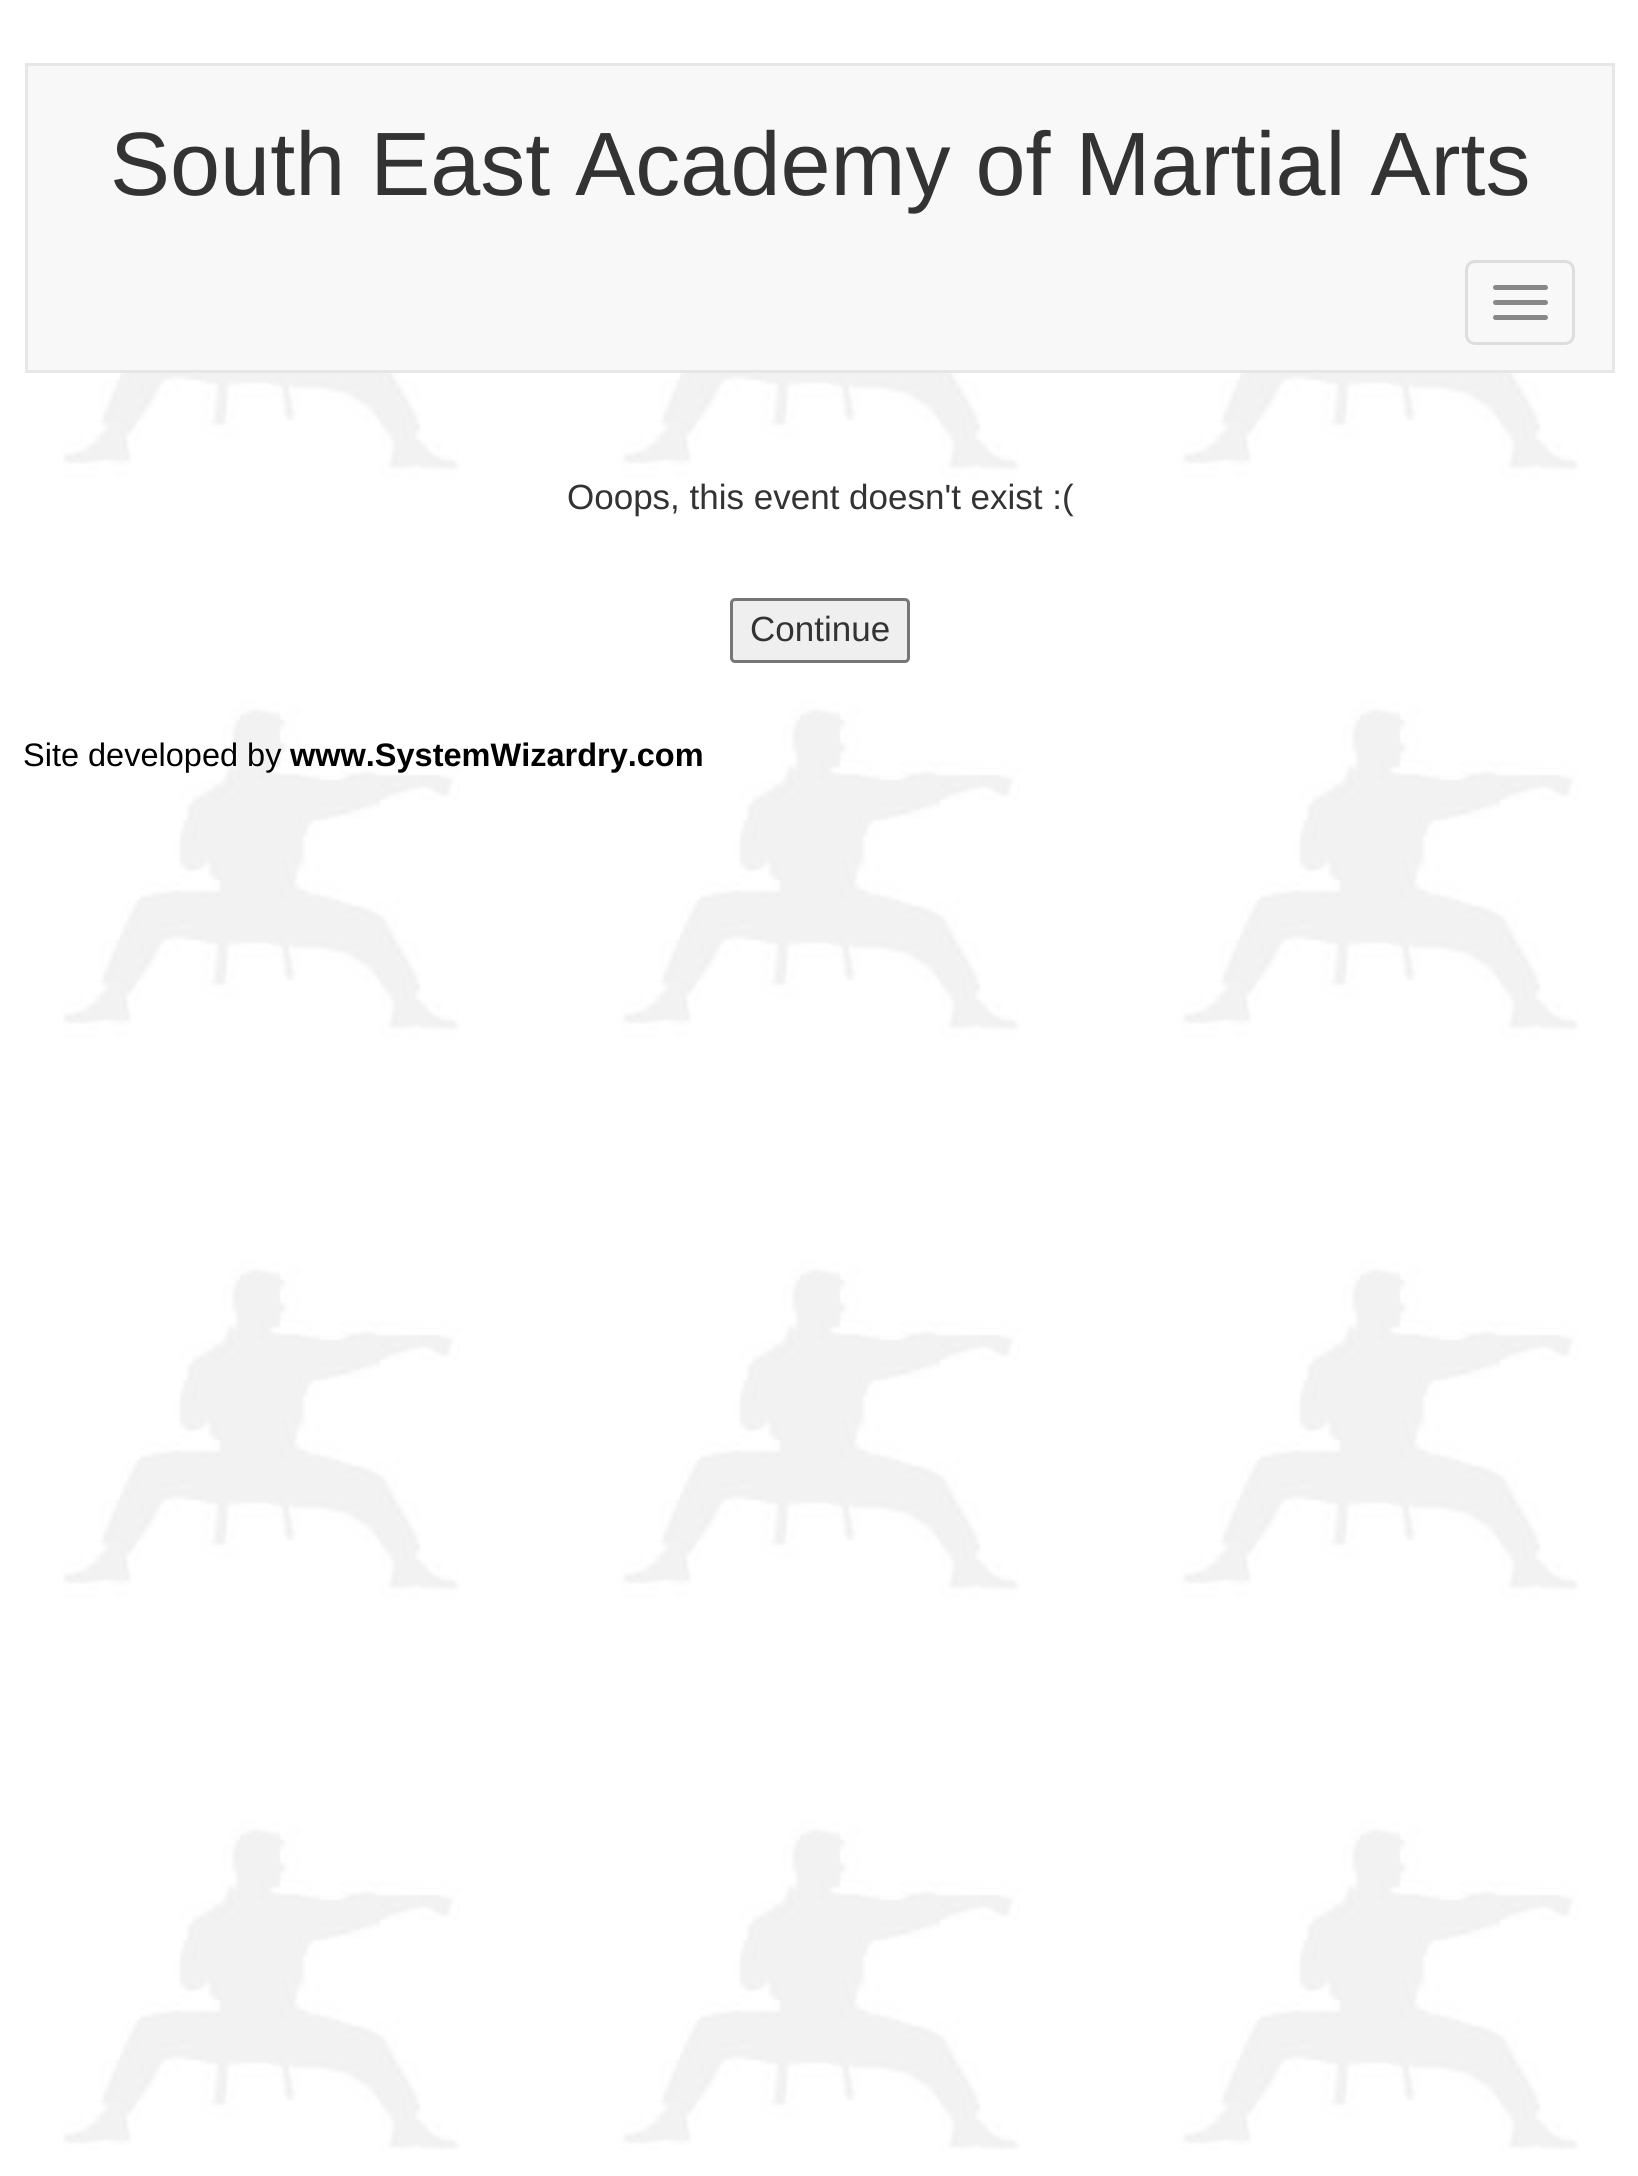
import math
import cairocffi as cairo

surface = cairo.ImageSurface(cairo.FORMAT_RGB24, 1638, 2176)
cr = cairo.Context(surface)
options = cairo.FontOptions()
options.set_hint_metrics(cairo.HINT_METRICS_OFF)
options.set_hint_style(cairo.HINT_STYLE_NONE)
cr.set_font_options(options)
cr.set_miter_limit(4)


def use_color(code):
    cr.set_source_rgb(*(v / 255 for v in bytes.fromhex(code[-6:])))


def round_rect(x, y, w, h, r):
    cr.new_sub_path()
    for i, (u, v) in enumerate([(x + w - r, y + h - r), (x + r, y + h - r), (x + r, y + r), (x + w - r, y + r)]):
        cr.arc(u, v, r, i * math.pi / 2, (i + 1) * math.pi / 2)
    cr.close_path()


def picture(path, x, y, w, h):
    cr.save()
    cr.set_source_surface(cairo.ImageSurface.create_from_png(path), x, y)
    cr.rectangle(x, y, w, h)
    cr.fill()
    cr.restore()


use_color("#ffffff")
cr.paint()
picture("img1.png", 63, 373, 1516, 1777)
use_color("#f8f8f8")
cr.rectangle(26.5, 64.5, 1587, 307)
cr.fill_preserve()
use_color("#e7e7e7")
cr.set_line_width(3)
cr.stroke()
cr.select_font_face("Liberation Sans")
cr.set_font_size(90)
use_color("#333333")
cr.move_to(110, 195)
cr.show_text("South East Academy of Martial Arts")
round_rect(1466.5, 261.5, 107, 82, 8.5)
use_color("#dddddd")
cr.stroke()
use_color("#888888")
round_rect(1493, 285, 55, 5, 2.5)
cr.fill()
round_rect(1493, 300, 55, 5, 2.5)
cr.fill()
round_rect(1493, 315, 55, 5, 2.5)
cr.fill()
cr.set_font_size(35)
use_color("#333333")
cr.move_to(567, 509)
cr.show_text("Ooops, this event doesn't exist :(")
use_color("#efefef")
round_rect(731.5, 599.5, 177, 62, 3.5)
cr.fill_preserve()
use_color("#767676")
cr.stroke()
use_color("#333333")
cr.move_to(750, 641)
cr.show_text("Continue")
cr.set_font_size(32.5)
use_color("#000000")
cr.move_to(23, 766)
cr.show_text("Site developed by")
cr.select_font_face("Liberation Sans", cairo.FONT_SLANT_NORMAL, cairo.FONT_WEIGHT_BOLD)
cr.move_to(290, 766)
cr.show_text("www.SystemWizardry.com")
surface.write_to_png("result.png")
